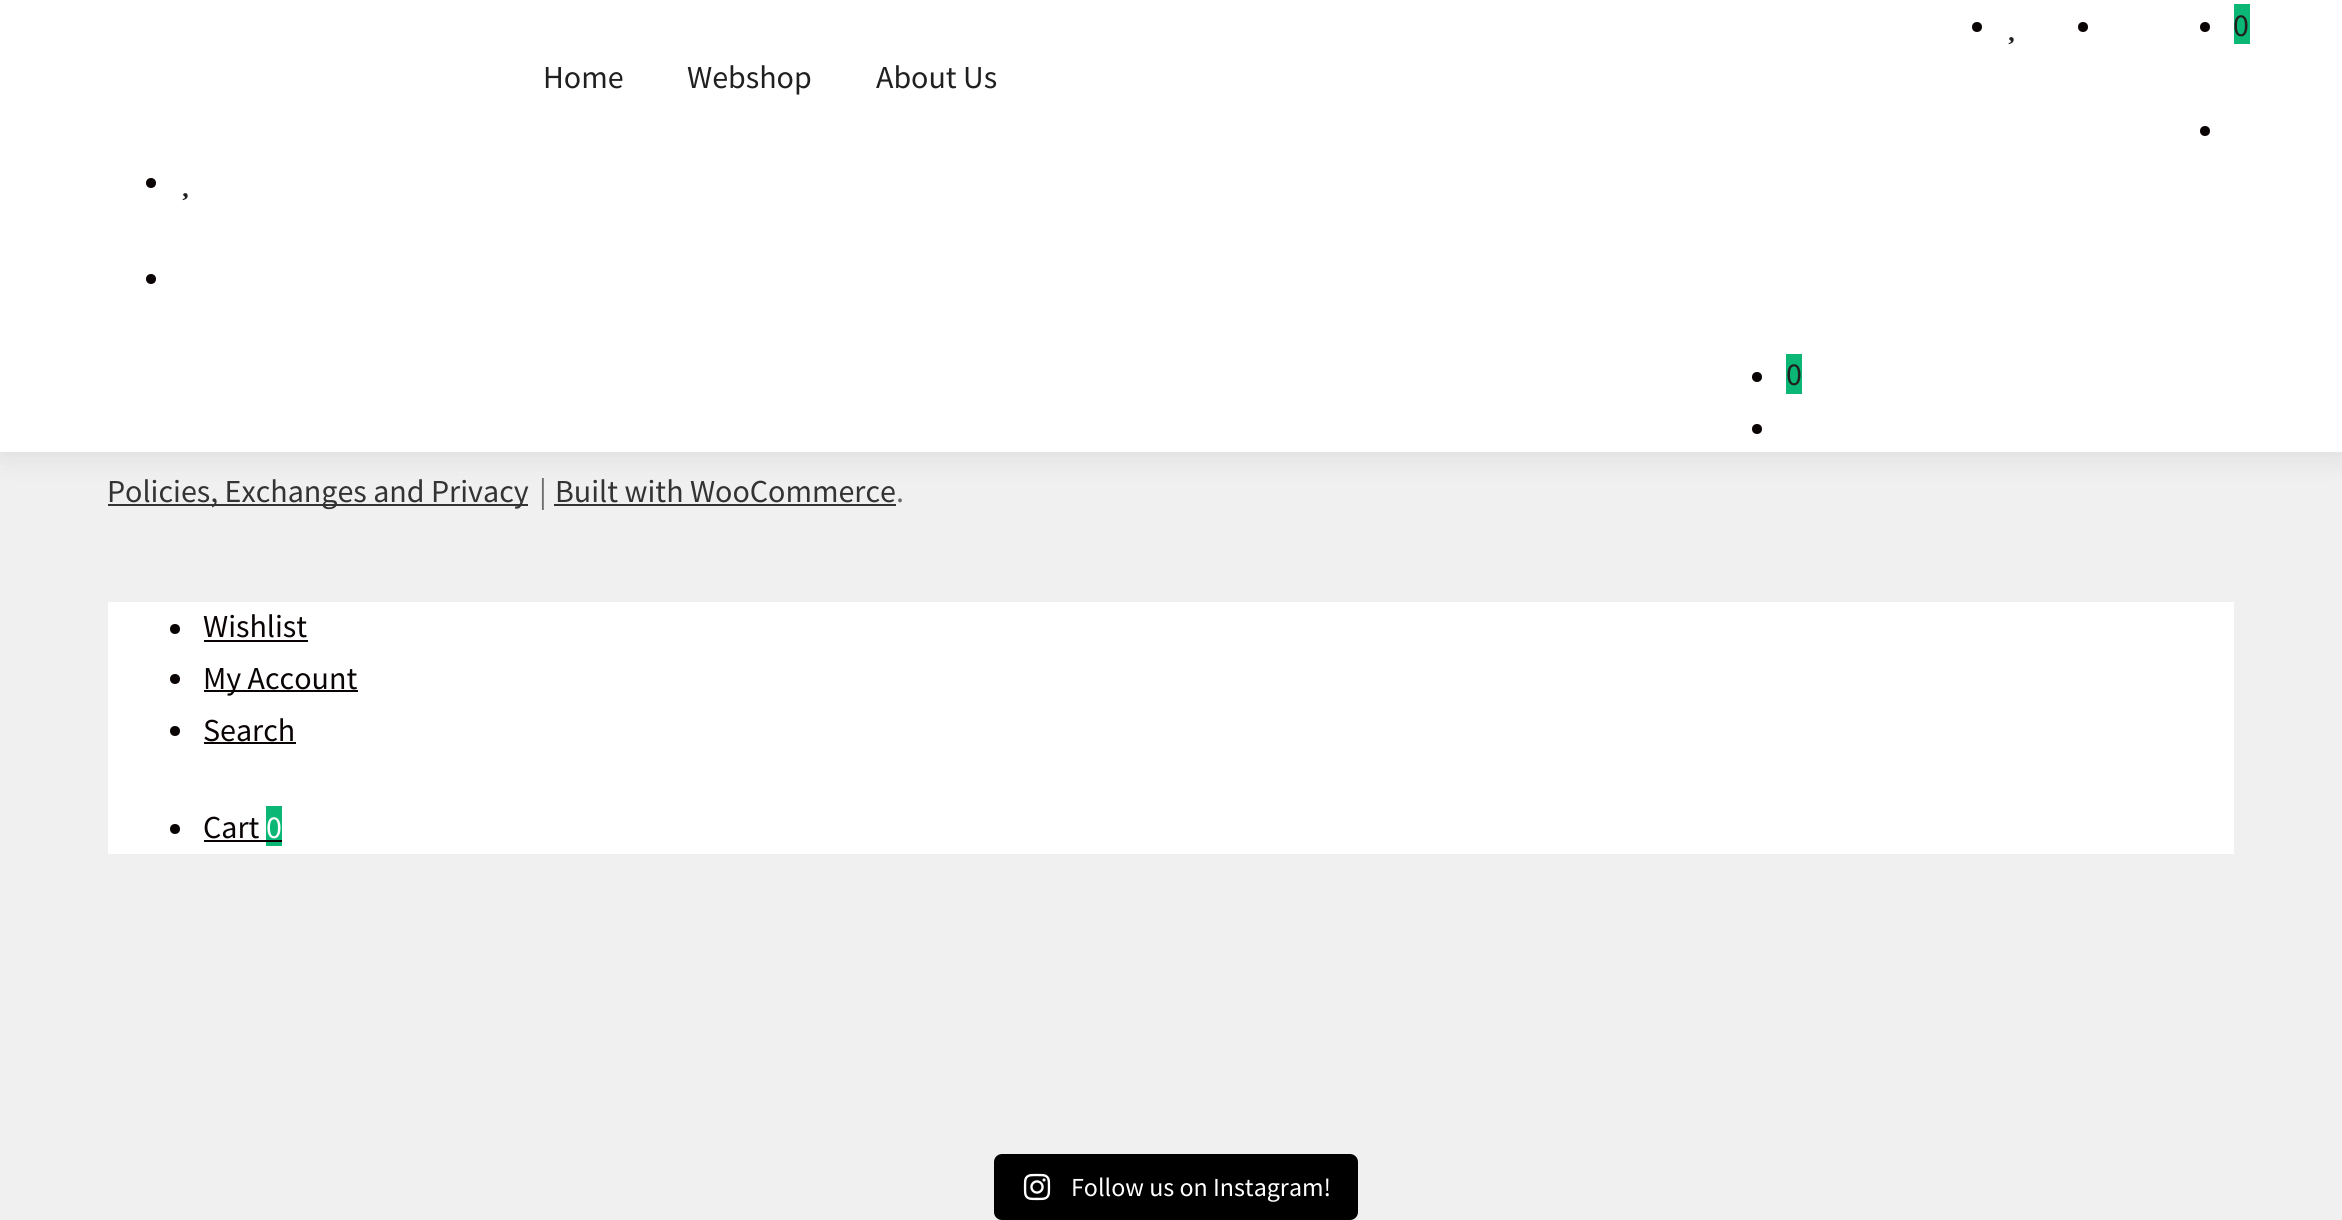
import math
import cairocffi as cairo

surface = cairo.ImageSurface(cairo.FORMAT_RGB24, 2342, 1220)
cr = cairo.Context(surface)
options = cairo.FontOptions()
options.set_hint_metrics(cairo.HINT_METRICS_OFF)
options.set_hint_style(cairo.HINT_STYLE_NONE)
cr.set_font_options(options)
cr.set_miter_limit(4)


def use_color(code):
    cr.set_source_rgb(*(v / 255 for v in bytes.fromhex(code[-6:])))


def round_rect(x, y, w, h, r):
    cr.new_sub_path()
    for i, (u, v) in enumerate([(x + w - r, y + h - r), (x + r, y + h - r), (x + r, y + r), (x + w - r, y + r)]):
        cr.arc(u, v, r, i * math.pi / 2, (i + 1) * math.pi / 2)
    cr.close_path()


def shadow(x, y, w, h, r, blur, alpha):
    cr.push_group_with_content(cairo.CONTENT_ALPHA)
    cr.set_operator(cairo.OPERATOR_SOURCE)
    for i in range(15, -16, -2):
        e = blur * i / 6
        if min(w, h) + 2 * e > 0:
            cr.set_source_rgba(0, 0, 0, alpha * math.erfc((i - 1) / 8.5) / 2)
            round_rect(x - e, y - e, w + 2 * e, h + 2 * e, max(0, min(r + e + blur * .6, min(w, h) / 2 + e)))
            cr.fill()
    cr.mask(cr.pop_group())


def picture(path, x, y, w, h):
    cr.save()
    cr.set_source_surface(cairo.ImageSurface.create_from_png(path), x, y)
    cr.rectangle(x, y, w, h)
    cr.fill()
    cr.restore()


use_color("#f0f0f0")
cr.paint()
use_color("#000000")
shadow(2, 2, 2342, 452, 0, 15, 0.1)
use_color("#ffffff")
cr.rectangle(0, 0, 2342, 452)
cr.fill()
use_color("#0a0404")
cr.arc(1977, 27, 5, 0, 2 * math.pi)
cr.fill()
picture("img1.png", 2008, 37, 6, 8)
cr.arc(2083, 27, 5, 0, 2 * math.pi)
cr.fill()
cr.arc(2205, 27, 5, 0, 2 * math.pi)
cr.fill()
use_color("#0ab774")
cr.rectangle(2234, 4, 16, 40)
cr.fill()
cr.select_font_face("Source Sans Pro")
cr.set_font_size(32)
use_color("#202020")
cr.move_to(2233, 36)
cr.show_text("0")
use_color("#0a0404")
cr.new_path()
cr.arc(2205, 131, 5, 0, 2 * math.pi)
cr.fill()
use_color("#202020")
cr.move_to(543, 88)
cr.show_text("Home")
cr.move_to(687, 88)
cr.show_text("Webshop")
cr.move_to(876, 88)
cr.show_text("About Us")
use_color("#0a0404")
cr.new_path()
cr.arc(151, 183, 5, 0, 2 * math.pi)
cr.fill()
picture("img1.png", 182, 193, 6, 8)
cr.arc(151, 279, 5, 0, 2 * math.pi)
cr.fill()
cr.arc(1757, 377, 5, 0, 2 * math.pi)
cr.fill()
use_color("#0ab774")
cr.rectangle(1786, 354, 16, 40)
cr.fill()
use_color("#202020")
cr.move_to(1786, 385)
cr.show_text("0")
use_color("#0a0404")
cr.new_path()
cr.arc(1757, 429, 5, 0, 2 * math.pi)
cr.fill()
use_color("#333333")
cr.rectangle(108, 504, 420, 2)
cr.fill()
cr.move_to(107, 502)
cr.show_text("Policies, Exchanges and Privacy")
use_color("#6d6d6d")
cr.move_to(539, 502)
cr.show_text("|")
use_color("#333333")
cr.move_to(555, 502)
cr.show_text("Built with WooCommerce")
cr.rectangle(554, 504, 342, 2)
cr.fill()
use_color("#6d6d6d")
cr.move_to(896, 502)
cr.show_text(".")
use_color("#ffffff")
cr.rectangle(108, 602, 2126, 252)
cr.fill()
use_color("#0a0404")
cr.arc(175, 629, 5, 0, 2 * math.pi)
cr.fill()
cr.move_to(203, 637)
cr.show_text("Wishlist")
cr.rectangle(204, 640, 104, 2)
cr.fill()
cr.arc(175, 679, 5, 0, 2 * math.pi)
cr.fill()
cr.rectangle(204, 690, 154, 2)
cr.fill()
cr.move_to(203, 689)
cr.show_text("My Account")
cr.new_path()
cr.arc(175, 731, 5, 0, 2 * math.pi)
cr.fill()
cr.move_to(203, 741)
cr.show_text("Search")
cr.rectangle(204, 742, 92, 2)
cr.fill()
cr.arc(175, 829, 5, 0, 2 * math.pi)
cr.fill()
cr.move_to(203, 838)
cr.show_text("Cart")
cr.rectangle(204, 840, 62, 2)
cr.fill()
use_color("#0ab774")
cr.rectangle(266, 806, 16, 40)
cr.fill()
use_color("#ffffff")
cr.move_to(266, 838)
cr.show_text("0")
use_color("#0a0404")
cr.rectangle(266, 840, 16, 2)
cr.fill()
use_color("#000000")
round_rect(994, 1154, 364, 66, 8)
cr.fill()
picture("img2.png", 1023, 1173, 28, 28)
cr.set_font_size(26)
use_color("#ffffff")
cr.move_to(1071, 1196)
cr.show_text("Follow us on Instagram!")
surface.write_to_png("result.png")
